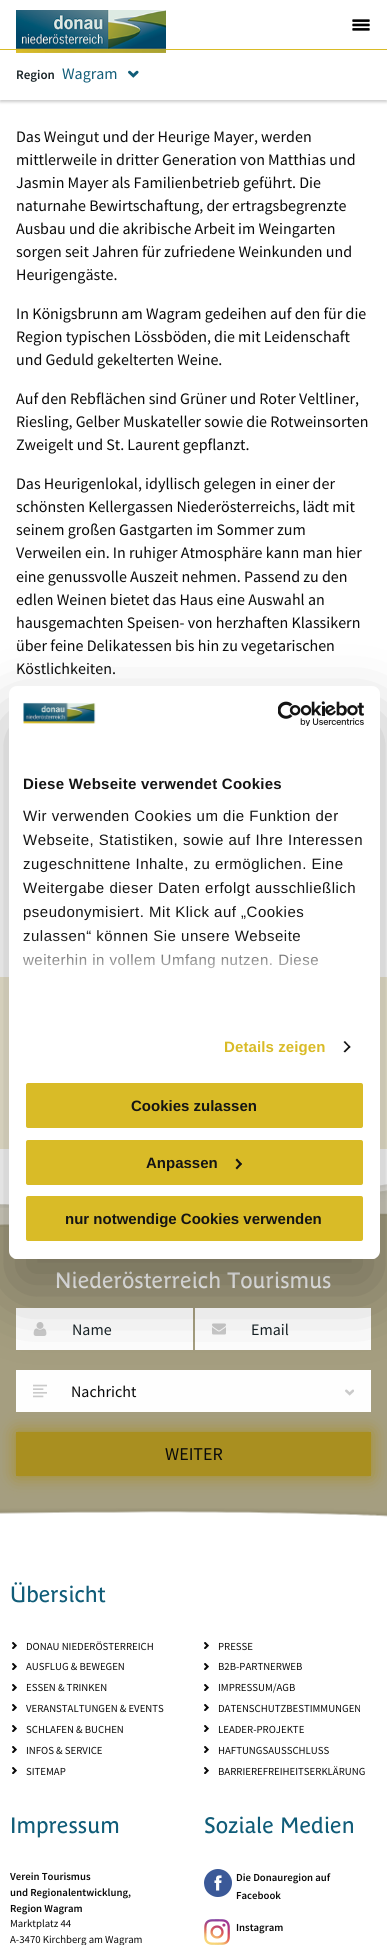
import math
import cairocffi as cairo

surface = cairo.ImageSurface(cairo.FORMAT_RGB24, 387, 1945)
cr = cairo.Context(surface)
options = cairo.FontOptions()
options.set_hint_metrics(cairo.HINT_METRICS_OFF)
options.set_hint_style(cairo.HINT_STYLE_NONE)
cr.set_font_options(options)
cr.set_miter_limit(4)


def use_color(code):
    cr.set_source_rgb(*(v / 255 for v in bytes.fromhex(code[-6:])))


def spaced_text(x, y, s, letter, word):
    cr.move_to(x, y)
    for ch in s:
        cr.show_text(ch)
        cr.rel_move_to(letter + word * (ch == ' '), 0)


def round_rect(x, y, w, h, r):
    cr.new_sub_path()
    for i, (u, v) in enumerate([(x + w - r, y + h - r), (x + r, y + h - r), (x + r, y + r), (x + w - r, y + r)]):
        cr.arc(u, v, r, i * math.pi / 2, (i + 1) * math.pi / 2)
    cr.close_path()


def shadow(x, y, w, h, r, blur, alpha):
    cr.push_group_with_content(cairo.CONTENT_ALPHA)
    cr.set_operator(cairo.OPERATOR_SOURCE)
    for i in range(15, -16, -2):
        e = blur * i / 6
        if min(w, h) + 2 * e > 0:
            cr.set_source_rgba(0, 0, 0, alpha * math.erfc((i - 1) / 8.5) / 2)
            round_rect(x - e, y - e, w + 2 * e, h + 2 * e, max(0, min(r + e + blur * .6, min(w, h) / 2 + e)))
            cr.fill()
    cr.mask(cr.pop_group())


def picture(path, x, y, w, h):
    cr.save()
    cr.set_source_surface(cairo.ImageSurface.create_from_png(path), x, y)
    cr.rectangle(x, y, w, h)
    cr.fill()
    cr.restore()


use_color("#ffffff")
cr.paint()
use_color("#000000")
shadow(0, 2, 387, 100, 0, 1.5, 0.2)
use_color("#ffffff")
cr.rectangle(0, 0, 387, 100)
cr.fill()
use_color("#d9bb27")
cr.rectangle(0, 49, 387, 1)
cr.fill()
picture("img1.png", 16, 10, 150, 43)
picture("img2.png", 352, 19, 18, 12)
cr.select_font_face("Source Sans Pro SemiBold")
cr.set_font_size(13)
use_color("#172226")
cr.move_to(16, 79)
cr.show_text("Region")
cr.select_font_face("Source Sans Pro")
cr.set_font_size(16)
use_color("#105c78")
cr.move_to(62, 79)
cr.show_text("Wagram")
picture("img3.png", 128, 70, 11, 8)
use_color("#0a0a0a")
cr.move_to(16, 142)
cr.show_text("Das Weingut und der Heurige Mayer, werden")
cr.move_to(16, 165)
cr.show_text("mittlerweile in dritter Generation von Matthias und")
cr.move_to(16, 188)
cr.show_text("Jasmin Mayer als Familienbetrieb geführt. Die")
cr.move_to(16, 211)
cr.show_text("naturnahe Bewirtschaftung, der ertragsbegrenzte")
cr.move_to(16, 234)
cr.show_text("Ausbau und die akribische Arbeit im Weingarten")
cr.move_to(16, 257)
cr.show_text("sorgen seit Jahren für zufriedene Weinkunden und")
cr.move_to(16, 280)
cr.show_text("Heurigengäste.")
cr.move_to(16, 319)
cr.show_text("In Königsbrunn am Wagram gedeihen auf den für die")
cr.move_to(16, 342)
cr.show_text("Region typischen Lössböden, die mit Leidenschaft")
cr.move_to(16, 365)
cr.show_text("und Geduld gekelterten Weine.")
cr.move_to(16, 404)
cr.show_text("Auf den Rebflächen sind Grüner und Roter Veltliner,")
cr.move_to(16, 427)
cr.show_text("Riesling, Gelber Muskateller sowie die Rotweinsorten")
cr.move_to(16, 450)
cr.show_text("Zweigelt und St. Laurent gepflanzt.")
cr.move_to(16, 489)
cr.show_text("Das Heurigenlokal, idyllisch gelegen in einer der")
cr.move_to(16, 512)
cr.show_text("schönsten Kellergassen Niederösterreichs, lädt mit")
cr.move_to(16, 535)
cr.show_text("seinem großen Gastgarten im Sommer zum")
cr.move_to(16, 558)
cr.show_text("Verweilen ein. In ruhiger Atmosphäre kann man hier")
cr.move_to(16, 582)
cr.show_text("eine genussvolle Auszeit nehmen. Passend zu den")
cr.move_to(16, 605)
cr.show_text("edlen Weinen bietet das Haus eine Auswahl an")
cr.move_to(16, 628)
cr.show_text("hausgemachten Speisen- von herzhaften Klassikern")
cr.move_to(16, 651)
cr.show_text("über feine Delikatessen bis hin zu vegetarischen")
cr.move_to(16, 674)
cr.show_text("Köstlichkeiten.")
use_color("#eee9d2")
cr.rectangle(0, 977, 387, 172)
cr.fill()
use_color("#a59e80")
cr.rectangle(0, 1184, 387, 333)
cr.fill()
picture("img6.png", 380, 1184, 7, 32)
picture("img5.png", 0, 1184, 387, 43)
picture("img4.png", 0, 1182, 387, 26)
cr.select_font_face("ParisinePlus")
cr.set_font_size(22)
use_color("#ffffff")
cr.move_to(55, 1288)
cr.show_text("Niederösterreich Tourismus")
use_color("#fefefe")
cr.rectangle(16, 1308, 177, 42)
cr.fill()
picture("img7.png", 33, 1322, 14, 14)
cr.select_font_face("Source Sans Pro")
cr.set_font_size(16)
use_color("#172226")
cr.move_to(72, 1335)
cr.show_text("Name")
use_color("#fefefe")
cr.rectangle(195, 1308, 176, 42)
cr.fill()
picture("img8.png", 212, 1323, 14, 12)
use_color("#172226")
cr.move_to(251, 1335)
cr.show_text("Email")
use_color("#a98f20")
shadow(16, 1432, 355, 44, 0, 9, 1)
use_color("#fefefe")
cr.rectangle(16, 1370, 355, 42)
cr.fill()
picture("img9.png", 33, 1384, 14, 14)
use_color("#0a0a0a")
cr.move_to(71, 1397)
cr.show_text("Nachricht")
picture("img10.png", 345, 1389, 9, 7)
use_color("#a98f20")
cr.rectangle(16, 1432, 355, 44)
cr.fill()
cr.set_font_size(18)
use_color("#0a0a0a")
cr.move_to(165, 1460)
cr.show_text("WEITER")
picture("img11.png", 0, 1508, 387, 10)
cr.select_font_face("ParisinePlus")
cr.set_font_size(22)
use_color("#105c78")
cr.move_to(10, 1602)
cr.show_text("Übersicht")
picture("img12.png", 12, 1642, 5, 7)
cr.select_font_face("Source Sans Pro")
cr.set_font_size(10.75)
use_color("#0a0a0a")
cr.move_to(26, 1650)
cr.show_text("DONAU NIEDERÖSTERREICH")
picture("img12.png", 204, 1642, 5, 7)
cr.move_to(218, 1650)
cr.show_text("PRESSE")
picture("img12.png", 12, 1663, 5, 7)
cr.move_to(26, 1670)
cr.show_text("AUSFLUG & BEWEGEN")
picture("img12.png", 204, 1663, 5, 7)
cr.move_to(218, 1670)
cr.show_text("B2B-PARTNERWEB")
picture("img12.png", 12, 1684, 5, 7)
cr.move_to(26, 1691)
cr.show_text("ESSEN & TRINKEN")
picture("img12.png", 204, 1684, 5, 7)
cr.move_to(218, 1691)
cr.show_text("IMPRESSUM/AGB")
picture("img12.png", 12, 1704, 5, 7)
cr.move_to(26, 1712)
cr.show_text("VERANSTALTUNGEN & EVENTS")
picture("img12.png", 204, 1704, 5, 7)
cr.move_to(218, 1712)
cr.show_text("DATENSCHUTZBESTIMMUNGEN")
picture("img12.png", 12, 1725, 5, 7)
cr.move_to(26, 1733)
cr.show_text("SCHLAFEN & BUCHEN")
picture("img12.png", 204, 1725, 5, 7)
cr.move_to(218, 1733)
cr.show_text("LEADER-PROJEKTE")
picture("img12.png", 12, 1746, 5, 7)
cr.move_to(26, 1754)
cr.show_text("INFOS & SERVICE")
picture("img12.png", 204, 1746, 5, 7)
cr.move_to(218, 1754)
cr.show_text("HAFTUNGSAUSSCHLUSS")
picture("img12.png", 12, 1767, 5, 7)
cr.move_to(26, 1775)
cr.show_text("SITEMAP")
picture("img12.png", 204, 1767, 5, 7)
cr.move_to(218, 1775)
cr.show_text("BARRIEREFREIHEITSERKLÄRUNG")
cr.select_font_face("ParisinePlus")
cr.set_font_size(22)
use_color("#105c78")
cr.move_to(10, 1833)
cr.show_text("Impressum")
cr.select_font_face("Source Sans Pro SemiBold")
cr.set_font_size(10.75)
use_color("#0a0a0a")
cr.move_to(10, 1880)
cr.show_text("Verein Tourismus")
cr.move_to(10, 1896)
cr.show_text("und Regionalentwicklung,")
cr.move_to(10, 1912)
cr.show_text("Region Wagram")
cr.select_font_face("Source Sans Pro")
cr.move_to(10, 1927)
cr.show_text("Marktplatz 44")
cr.move_to(10, 1943)
cr.show_text("A-3470 Kirchberg am Wagram")
cr.select_font_face("ParisinePlus")
cr.set_font_size(22)
use_color("#105c78")
cr.move_to(204, 1833)
cr.show_text("Soziale Medien")
picture("img13.png", 204, 1869, 28, 28)
cr.select_font_face("Source Sans Pro SemiBold")
cr.set_font_size(10.75)
use_color("#0a0a0a")
cr.move_to(236, 1881)
cr.show_text("Die Donauregion auf")
cr.move_to(236, 1899)
cr.show_text("Facebook")
picture("img14.png", 204, 1919, 26, 26)
cr.move_to(236, 1931)
cr.show_text("Instagram")
use_color("#000000")
shadow(9, 718, 371, 573, 8, 34, 0.3)
use_color("#ffffff")
round_rect(9, 686, 371, 573, 8)
cr.fill()
picture("img15.png", 23, 702, 73, 22)
picture("img16.png", 278, 701, 86, 25)
cr.select_font_face("Liberation Sans", cairo.FONT_SLANT_NORMAL, cairo.FONT_WEIGHT_BOLD)
cr.set_font_size(15)
use_color("#141414")
spaced_text(23, 789, "Diese Webseite verwendet Cookies", 0.25, 0)
cr.select_font_face("Liberation Sans")
spaced_text(23, 821, "Wir verwenden Cookies um die Funktion der", 0.5, 0)
spaced_text(23, 845, "Webseite, Statistiken, sowie auf Ihre Interessen", 0.5, 0)
spaced_text(23, 869, "zugeschnittene Inhalte, zu ermöglichen. Eine", 0.5, 0)
spaced_text(23, 893, "Weitergabe dieser Daten erfolgt ausschließlich", 0.5, 0)
spaced_text(23, 917, "pseudonymisiert. Mit Klick auf „Cookies", 0.5, 0)
spaced_text(23, 941, "zulassen“ können Sie unsere Webseite", 0.5, 0)
spaced_text(23, 965, "weiterhin in vollem Umfang nutzen. Diese", 0.5, 0)
gradient = cairo.LinearGradient(188, 1011, 188, 936)
gradient.add_color_stop_rgba(0, 1, 1, 1, 1)
gradient.add_color_stop_rgba(0.5, 1, 1, 1, 0.8)
gradient.add_color_stop_rgba(1, 1, 1, 1, 0)
cr.set_source(gradient)
cr.rectangle(23, 937, 295, 32)
cr.fill()
cr.select_font_face("Liberation Sans", cairo.FONT_SLANT_NORMAL, cairo.FONT_WEIGHT_BOLD)
use_color("#d9bb27")
spaced_text(224, 1052, "Details zeigen", 0.1, 0)
use_color("#141414")
cr.new_path()
cr.move_to(345, 1041)
cr.line_to(350.5, 1047)
cr.line_to(349.5, 1048)
cr.line_to(343.5, 1042)
cr.close_path()
cr.fill()
cr.new_path()
cr.move_to(349.5, 1045.5)
cr.line_to(350.5, 1047)
cr.line_to(345, 1052.5)
cr.line_to(343.5, 1051.5)
cr.close_path()
cr.fill()
cr.save()
round_rect(9, 686, 371, 573, 8)
cr.clip()
use_color("#ffffff")
cr.rectangle(9, 1258, 371, 1)
cr.fill()
cr.restore()
use_color("#d9bb27")
round_rect(25, 1082, 339, 47, 3)
cr.fill_preserve()
use_color("#ffffff")
cr.stroke()
use_color("#141414")
cr.move_to(131, 1111)
cr.show_text("Cookies zulassen")
use_color("#d9bb27")
round_rect(25, 1139, 339, 47, 3)
cr.fill_preserve()
use_color("#ffffff")
cr.stroke()
use_color("#141414")
cr.move_to(146, 1168)
cr.show_text("Anpassen")
cr.new_path()
cr.move_to(237, 1158.5)
cr.line_to(242, 1164)
cr.line_to(240.5, 1165.5)
cr.line_to(235.5, 1160)
cr.close_path()
cr.fill()
cr.new_path()
cr.move_to(240.5, 1162.5)
cr.line_to(242, 1164)
cr.line_to(237, 1169.5)
cr.line_to(235.5, 1168)
cr.close_path()
cr.fill()
use_color("#d9bb27")
round_rect(25, 1195, 339, 47, 3)
cr.fill_preserve()
use_color("#ffffff")
cr.stroke()
use_color("#141414")
cr.move_to(65, 1224)
cr.show_text("nur notwendige Cookies verwenden")
surface.write_to_png("result.png")
